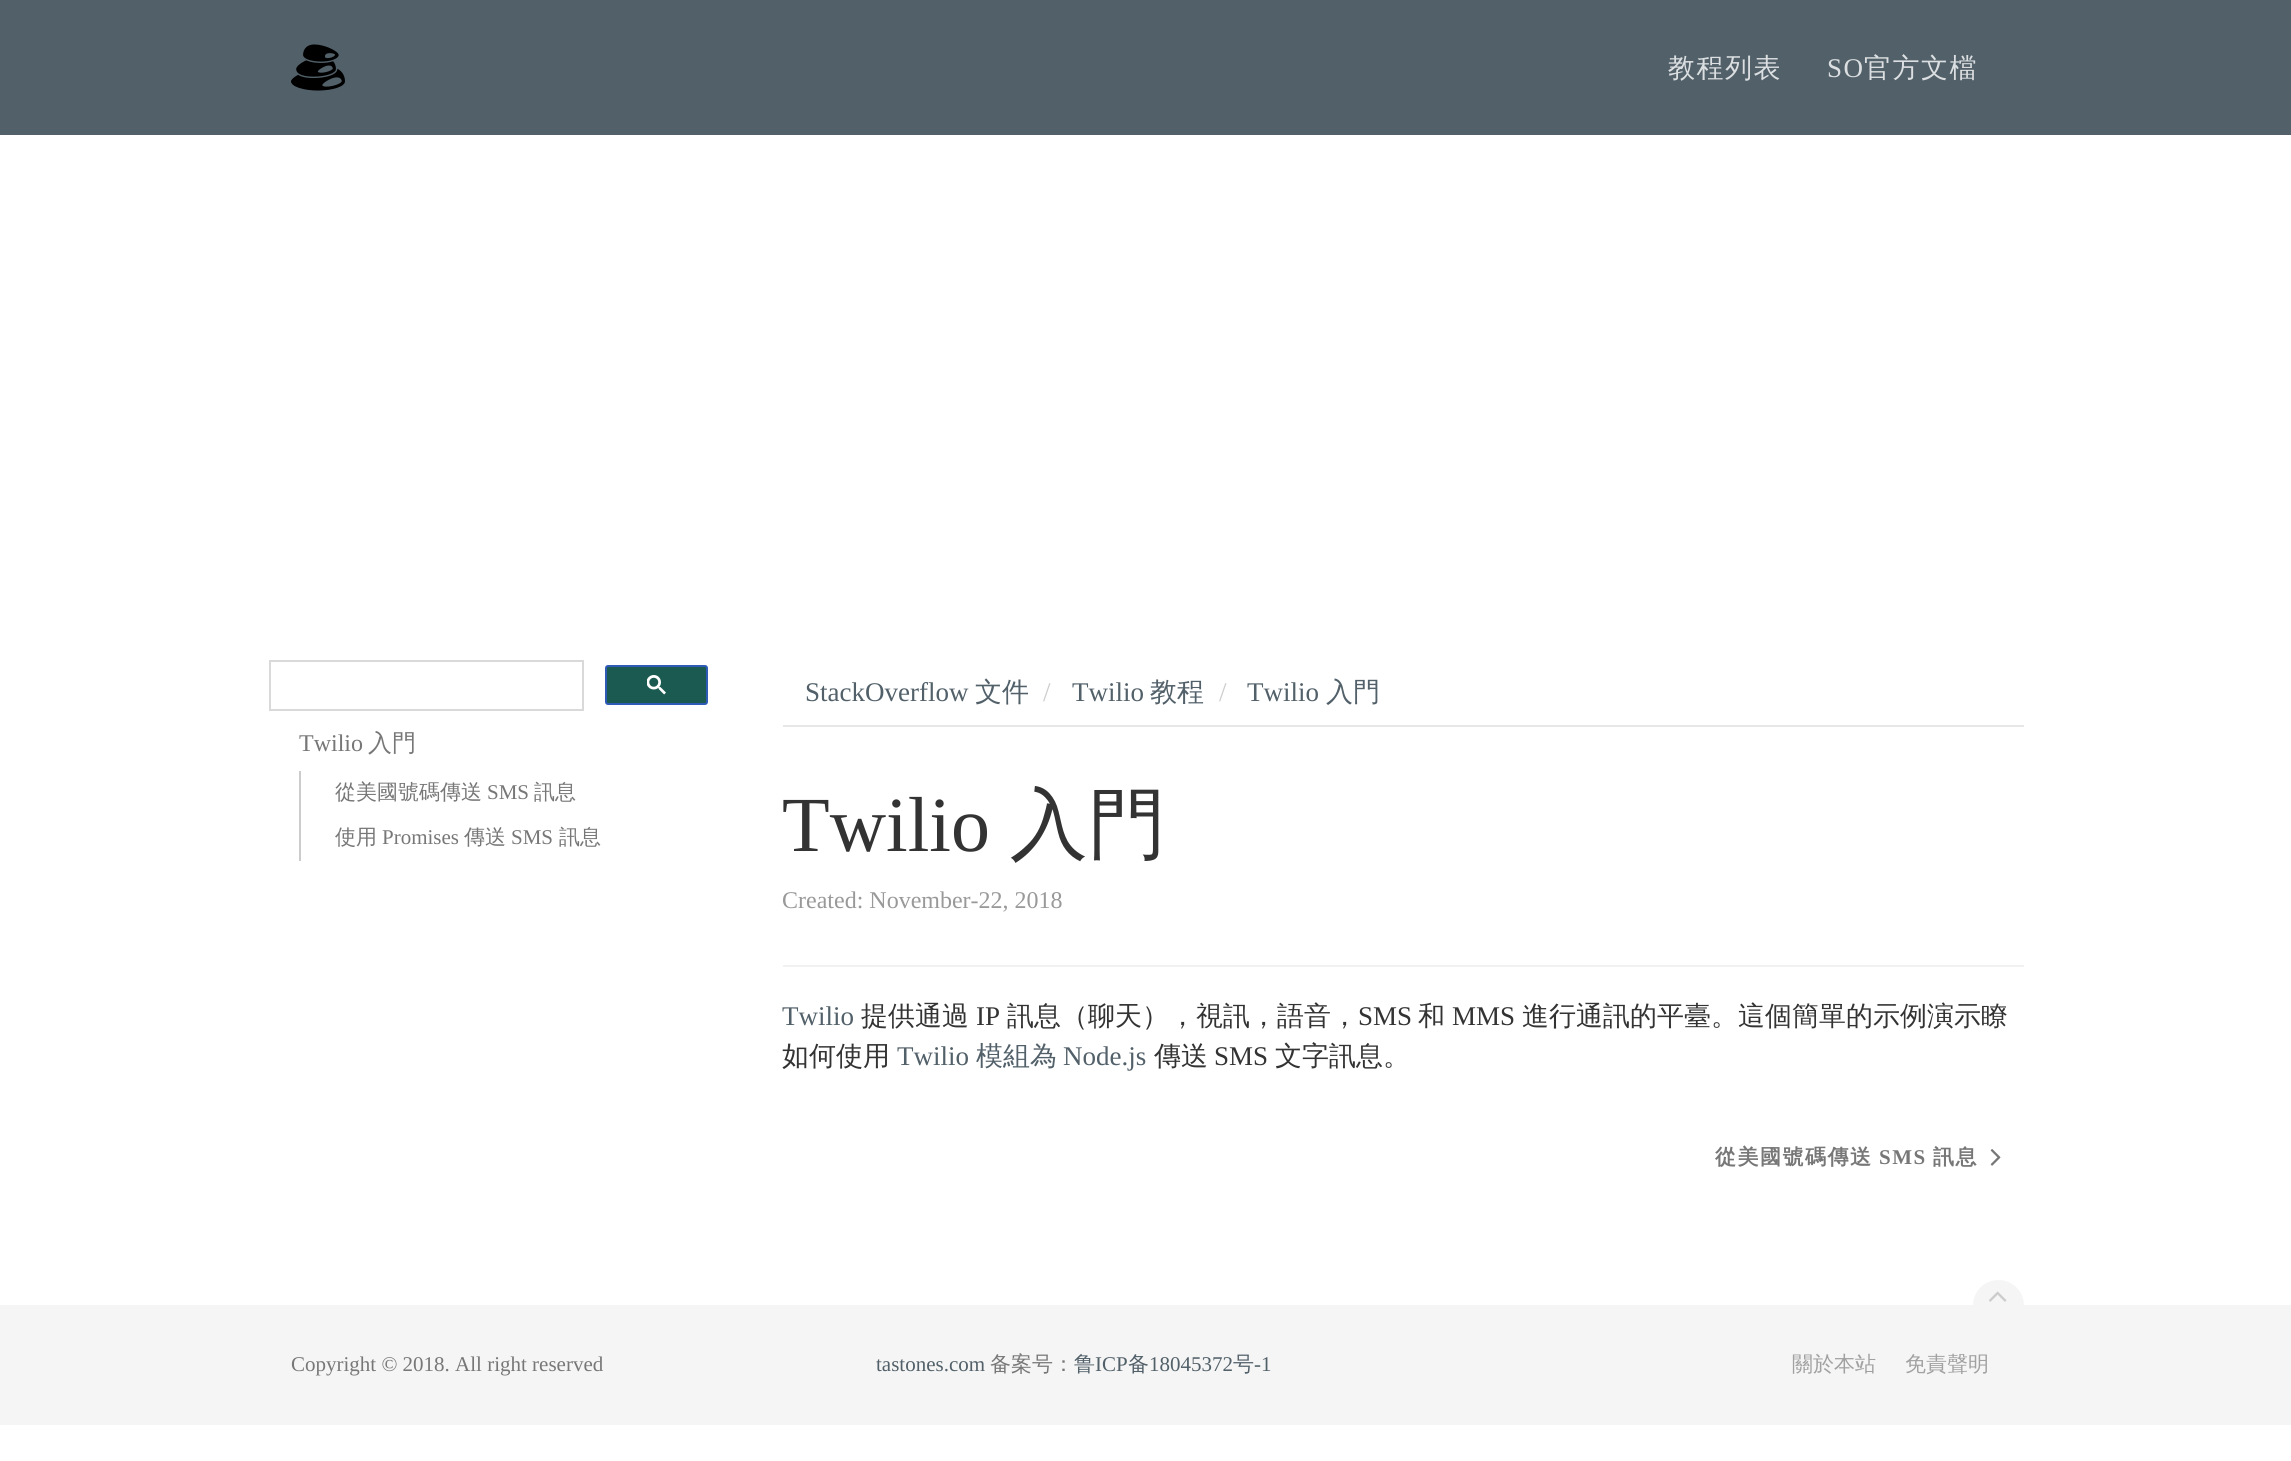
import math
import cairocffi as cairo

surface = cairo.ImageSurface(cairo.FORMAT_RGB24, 2291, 1461)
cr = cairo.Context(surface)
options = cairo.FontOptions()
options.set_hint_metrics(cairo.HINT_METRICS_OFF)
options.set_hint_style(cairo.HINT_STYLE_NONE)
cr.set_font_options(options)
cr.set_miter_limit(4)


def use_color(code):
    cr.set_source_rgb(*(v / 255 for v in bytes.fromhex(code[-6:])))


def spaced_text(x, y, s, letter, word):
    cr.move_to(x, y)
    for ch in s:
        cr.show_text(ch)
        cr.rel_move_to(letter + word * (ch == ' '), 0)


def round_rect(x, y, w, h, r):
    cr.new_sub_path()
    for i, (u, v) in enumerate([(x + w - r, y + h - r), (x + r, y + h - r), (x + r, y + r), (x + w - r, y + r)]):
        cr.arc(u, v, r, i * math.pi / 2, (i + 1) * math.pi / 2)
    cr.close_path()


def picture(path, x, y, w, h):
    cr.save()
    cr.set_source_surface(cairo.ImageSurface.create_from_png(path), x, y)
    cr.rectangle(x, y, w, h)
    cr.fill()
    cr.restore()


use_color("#ffffff")
cr.paint()
use_color("#526069")
cr.rectangle(0, 0, 2291, 135)
cr.fill()
picture("img1.png", 291, 44, 54, 47)
cr.select_font_face("WenQuanYi Zen Hei Medium")
cr.set_font_size(27)
use_color("#dcdfe1")
spaced_text(1668, 77, "教程列表", 1.5, 0)
cr.select_font_face("Liberation Serif")
spaced_text(1827, 77, "SO", 1.5, 0)
cr.select_font_face("WenQuanYi Zen Hei Medium")
spaced_text(1864, 77, "官方文檔", 1.5, 0)
cr.rectangle(270, 661, 313, 49)
use_color("#d9d9d9")
cr.stroke()
use_color("#1b5a50")
round_rect(606, 666, 101, 38, 2)
cr.fill_preserve()
use_color("#2f5bb7")
cr.stroke()
picture("img2.png", 647, 675, 19, 20)
cr.select_font_face("Liberation Serif")
cr.set_font_size(24)
use_color("#777777")
cr.move_to(299, 751)
cr.show_text("Twilio")
cr.select_font_face("WenQuanYi Zen Hei Medium")
cr.move_to(368, 751)
cr.show_text("入門")
use_color("#cccccc")
cr.rectangle(299, 771, 2, 90)
cr.fill()
cr.set_font_size(21)
use_color("#777777")
cr.move_to(335, 799)
cr.show_text("從美國號碼傳送")
cr.select_font_face("Liberation Serif")
cr.move_to(487, 799)
cr.show_text("SMS")
cr.select_font_face("WenQuanYi Zen Hei Medium")
cr.move_to(534, 799)
cr.show_text("訊息")
cr.move_to(335, 844)
cr.show_text("使用")
cr.select_font_face("Liberation Serif")
cr.move_to(382, 844)
cr.show_text("Promises")
cr.select_font_face("WenQuanYi Zen Hei Medium")
cr.move_to(464, 844)
cr.show_text("傳送")
cr.select_font_face("Liberation Serif")
cr.move_to(511, 844)
cr.show_text("SMS")
cr.select_font_face("WenQuanYi Zen Hei Medium")
cr.move_to(559, 844)
cr.show_text("訊息")
use_color("#e7e7e7")
cr.rectangle(783, 725, 1241, 2)
cr.fill()
cr.select_font_face("Liberation Serif")
cr.set_font_size(27)
use_color("#526069")
cr.move_to(805, 701)
cr.show_text("StackOverflow")
cr.select_font_face("WenQuanYi Zen Hei Medium")
cr.move_to(975, 701)
cr.show_text("文件")
cr.select_font_face("Liberation Serif")
use_color("#cccccc")
cr.move_to(1043, 701)
cr.show_text("/")
use_color("#526069")
cr.move_to(1072, 701)
cr.show_text("Twilio")
cr.select_font_face("WenQuanYi Zen Hei Medium")
cr.move_to(1150, 701)
cr.show_text("教程")
cr.select_font_face("Liberation Serif")
use_color("#cccccc")
cr.move_to(1219, 701)
cr.show_text("/")
use_color("#526069")
cr.move_to(1247, 701)
cr.show_text("Twilio")
cr.select_font_face("WenQuanYi Zen Hei Medium")
cr.move_to(1326, 701)
cr.show_text("入門")
use_color("#f1f1f1")
cr.rectangle(783, 965, 1241, 2)
cr.fill()
cr.select_font_face("Liberation Serif")
cr.set_font_size(78)
use_color("#333333")
cr.move_to(782, 851)
cr.show_text("Twilio")
cr.select_font_face("WenQuanYi Zen Hei Medium")
cr.move_to(1010, 851)
cr.show_text("入門")
cr.select_font_face("Liberation Serif")
cr.set_font_size(24)
use_color("#999999")
cr.move_to(782, 908)
cr.show_text("Created: November-22, 2018")
cr.set_font_size(27)
use_color("#526069")
cr.move_to(782, 1025)
cr.show_text("Twilio")
cr.select_font_face("WenQuanYi Zen Hei Medium")
use_color("#333333")
cr.move_to(861, 1025)
cr.show_text("提供通過")
cr.select_font_face("Liberation Serif")
cr.move_to(976, 1025)
cr.show_text("IP")
cr.select_font_face("WenQuanYi Zen Hei Medium")
cr.move_to(1007, 1025)
cr.show_text("訊息（聊天），視訊，語音，")
cr.select_font_face("Liberation Serif")
cr.move_to(1358, 1025)
cr.show_text("SMS")
cr.select_font_face("WenQuanYi Zen Hei Medium")
cr.move_to(1418, 1025)
cr.show_text("和")
cr.select_font_face("Liberation Serif")
cr.move_to(1452, 1025)
cr.show_text("MMS")
cr.select_font_face("WenQuanYi Zen Hei Medium")
cr.move_to(1522, 1025)
cr.show_text("進行通訊的平臺。這個簡單的示例演示瞭")
cr.move_to(782, 1065)
cr.show_text("如何使用")
cr.select_font_face("Liberation Serif")
use_color("#526069")
cr.move_to(897, 1065)
cr.show_text("Twilio")
cr.select_font_face("WenQuanYi Zen Hei Medium")
cr.move_to(976, 1065)
cr.show_text("模組為")
cr.select_font_face("Liberation Serif")
cr.move_to(1063, 1065)
cr.show_text("Node.js")
cr.select_font_face("WenQuanYi Zen Hei Medium")
use_color("#333333")
cr.move_to(1154, 1065)
cr.show_text("傳送")
cr.select_font_face("Liberation Serif")
cr.move_to(1214, 1065)
cr.show_text("SMS")
cr.select_font_face("WenQuanYi Zen Hei Medium")
cr.move_to(1275, 1065)
cr.show_text("文字訊息。")
cr.select_font_face("WenQuanYi Zen Hei", cairo.FONT_SLANT_NORMAL, cairo.FONT_WEIGHT_BOLD)
cr.set_font_size(21)
use_color("#777777")
spaced_text(1715, 1164, "從美國號碼傳送", 1.5, 0)
cr.select_font_face("Liberation Serif", cairo.FONT_SLANT_NORMAL, cairo.FONT_WEIGHT_BOLD)
spaced_text(1879, 1164, "SMS", 1.5, 0)
cr.select_font_face("WenQuanYi Zen Hei", cairo.FONT_SLANT_NORMAL, cairo.FONT_WEIGHT_BOLD)
spaced_text(1933, 1164, "訊息", 1.5, 0)
picture("img3.png", 1990, 1149, 11, 17)
use_color("#f5f5f5")
cr.rectangle(0, 1305, 2291, 120)
cr.fill()
cr.arc(1998.5, 1305.5, 25.5, 0, 2 * math.pi)
cr.fill()
picture("img4.png", 1989, 1291, 18, 11)
cr.select_font_face("Liberation Serif")
use_color("#777777")
cr.move_to(291, 1371)
cr.show_text("Copyright © 2018. All right reserved")
use_color("#526069")
cr.move_to(876, 1371)
cr.show_text("tastones.com")
cr.select_font_face("WenQuanYi Zen Hei Medium")
use_color("#777777")
cr.move_to(990, 1371)
cr.show_text("备案号：")
use_color("#526069")
cr.move_to(1074, 1371)
cr.show_text("鲁")
cr.select_font_face("Liberation Serif")
cr.move_to(1095, 1371)
cr.show_text("ICP")
cr.select_font_face("WenQuanYi Zen Hei Medium")
cr.move_to(1128, 1371)
cr.show_text("备")
cr.select_font_face("Liberation Serif")
cr.move_to(1149, 1371)
cr.show_text("18045372")
cr.select_font_face("WenQuanYi Zen Hei Medium")
cr.move_to(1233, 1371)
cr.show_text("号")
cr.select_font_face("Liberation Serif")
cr.move_to(1254, 1371)
cr.show_text("-1")
cr.select_font_face("WenQuanYi Zen Hei Medium")
use_color("#a1a1a1")
cr.move_to(1792, 1371)
cr.show_text("關於本站")
cr.move_to(1905, 1371)
cr.show_text("免責聲明")
surface.write_to_png("result.png")
